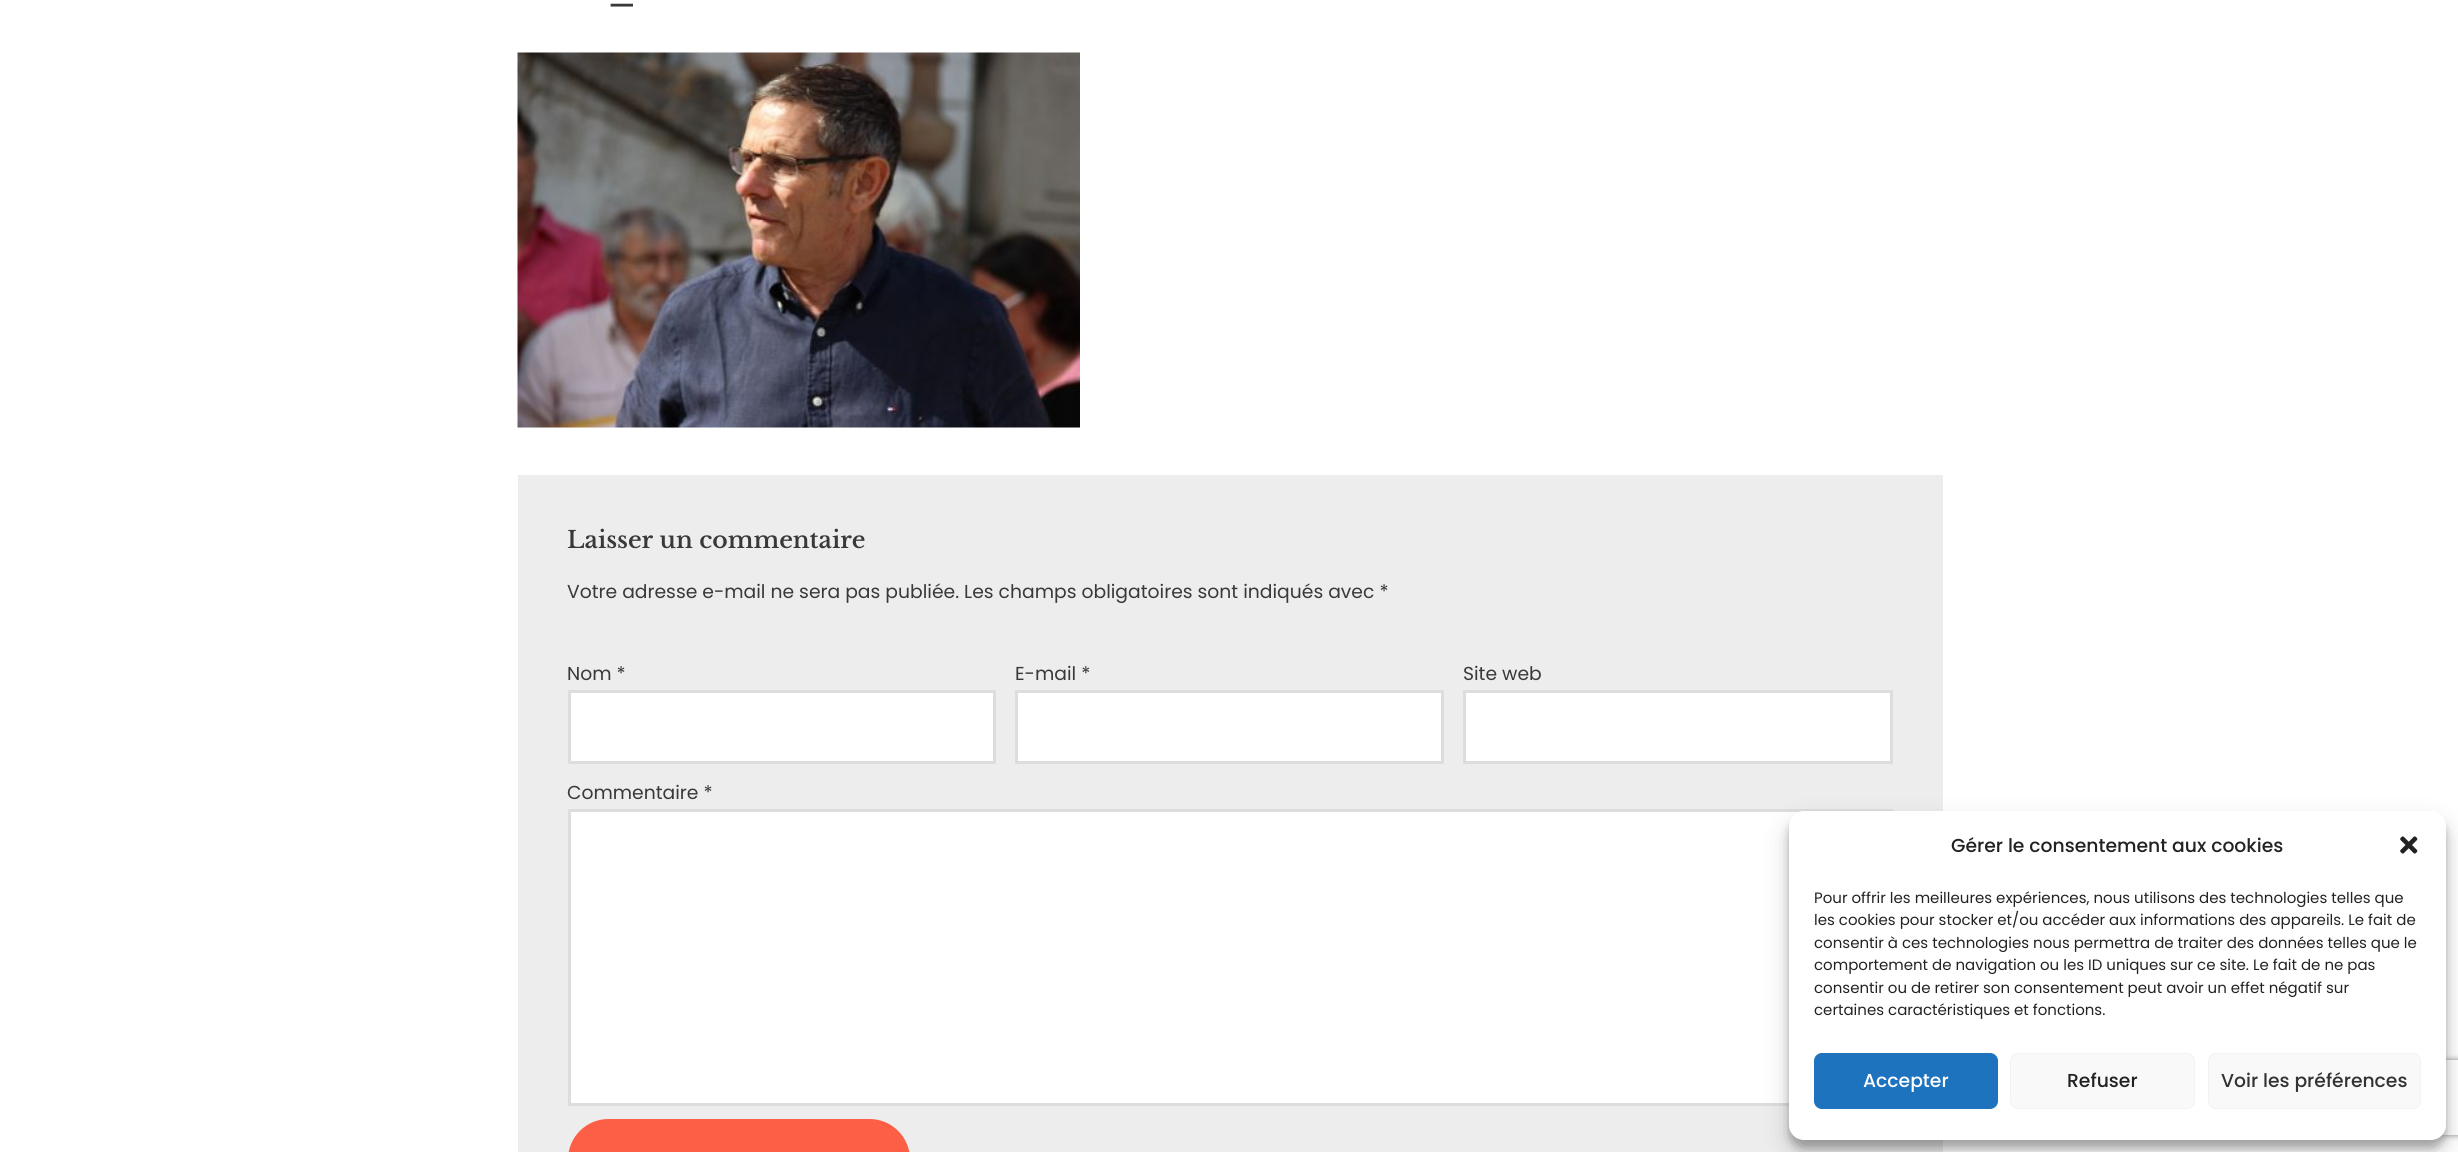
import math
import cairocffi as cairo

surface = cairo.ImageSurface(cairo.FORMAT_RGB24, 2458, 1152)
cr = cairo.Context(surface)
options = cairo.FontOptions()
options.set_hint_metrics(cairo.HINT_METRICS_OFF)
options.set_hint_style(cairo.HINT_STYLE_NONE)
cr.set_font_options(options)
cr.set_miter_limit(4)


def use_color(code):
    cr.set_source_rgb(*(v / 255 for v in bytes.fromhex(code[-6:])))


def round_rect(x, y, w, h, r):
    cr.new_sub_path()
    for i, (u, v) in enumerate([(x + w - r, y + h - r), (x + r, y + h - r), (x + r, y + r), (x + w - r, y + r)]):
        cr.arc(u, v, r, i * math.pi / 2, (i + 1) * math.pi / 2)
    cr.close_path()


def shadow(x, y, w, h, r, blur, alpha):
    cr.push_group_with_content(cairo.CONTENT_ALPHA)
    cr.set_operator(cairo.OPERATOR_SOURCE)
    for i in range(15, -16, -2):
        e = blur * i / 6
        if min(w, h) + 2 * e > 0:
            cr.set_source_rgba(0, 0, 0, alpha * math.erfc((i - 1) / 8.5) / 2)
            round_rect(x - e, y - e, w + 2 * e, h + 2 * e, max(0, min(r + e + blur * .6, min(w, h) / 2 + e)))
            cr.fill()
    cr.mask(cr.pop_group())


def picture(path, x, y, w, h):
    cr.save()
    cr.set_source_surface(cairo.ImageSurface.create_from_png(path), x, y)
    cr.rectangle(x, y, w, h)
    cr.fill()
    cr.restore()


use_color("#ffffff")
cr.paint()
cr.select_font_face("Libre Baskerville SemiBold")
cr.set_font_size(38)
use_color("#393939")
cr.move_to(608, 1)
cr.show_text("_")
picture("img1.png", 517, 52, 563, 376)
use_color("#ededed")
cr.rectangle(518, 475, 1425, 677)
cr.fill()
cr.set_font_size(23.5)
use_color("#393939")
cr.move_to(567, 548)
cr.show_text("Laisser un commentaire")
cr.select_font_face("Poppins")
cr.set_font_size(18.75)
cr.move_to(567, 598)
cr.show_text("Votre adresse e-mail ne sera pas publiée. Les champs obligatoires sont indiqués avec *")
cr.move_to(567, 680)
cr.show_text("Nom *")
use_color("#ffffff")
cr.rectangle(569.5, 691.5, 425, 71)
cr.fill_preserve()
use_color("#dddddd")
cr.set_line_width(3)
cr.stroke()
use_color("#393939")
cr.move_to(1015, 680)
cr.show_text("E-mail *")
use_color("#ffffff")
cr.rectangle(1016.5, 691.5, 426, 71)
cr.fill_preserve()
use_color("#dddddd")
cr.stroke()
use_color("#393939")
cr.move_to(1463, 680)
cr.show_text("Site web")
use_color("#ffffff")
cr.rectangle(1464.5, 691.5, 427, 71)
cr.fill_preserve()
use_color("#dddddd")
cr.stroke()
use_color("#393939")
cr.move_to(567, 799)
cr.show_text("Commentaire *")
use_color("#ffffff")
cr.rectangle(571, 812, 1228, 291)
cr.fill()
cr.rectangle(569.5, 810.5, 1322, 294)
use_color("#dddddd")
cr.stroke()
use_color("#fc5f45")
round_rect(568, 1119, 342, 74, 40.5)
cr.fill()
use_color("#000000")
shadow(1789, 819, 657, 329, 15, 4, 0.23)
shadow(1789, 824, 657, 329, 15, 12.5, 0.19)
cr.save()
cr.set_fill_rule(cairo.FILL_RULE_EVEN_ODD)
cr.new_path()
cr.move_to(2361, 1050)
cr.line_to(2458, 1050)
cr.line_to(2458, 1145)
cr.line_to(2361, 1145)
cr.close_path()
cr.move_to(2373.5, 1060)
cr.line_to(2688.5, 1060)
cr.curve_to(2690, 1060, 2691, 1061, 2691, 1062.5)
cr.line_to(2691, 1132.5)
cr.curve_to(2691, 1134, 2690, 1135, 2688.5, 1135)
cr.line_to(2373.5, 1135)
cr.curve_to(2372, 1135, 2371, 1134, 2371, 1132.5)
cr.line_to(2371, 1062.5)
cr.curve_to(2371, 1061, 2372, 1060, 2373.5, 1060)
cr.close_path()
cr.clip()
use_color("#808080")
shadow(2371, 1060, 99, 75, 2.5, 3, 1)
cr.restore()
use_color("#ffffff")
round_rect(1789, 811, 657, 329, 15)
cr.fill()
cr.select_font_face("Poppins Medium")
use_color("#222222")
cr.move_to(1951, 852)
cr.show_text("Gérer le consentement aux cookies")
picture("img2.png", 2400, 836, 18, 18)
cr.select_font_face("Poppins")
cr.set_font_size(15)
cr.move_to(1814, 903)
cr.show_text("Pour offrir les meilleures expériences, nous utilisons des technologies telles que")
cr.move_to(1814, 925)
cr.show_text("les cookies pour stocker et/ou accéder aux informations des appareils. Le fait de")
cr.move_to(1814, 948)
cr.show_text("consentir à ces technologies nous permettra de traiter des données telles que le")
cr.move_to(1814, 970)
cr.show_text("comportement de navigation ou les ID uniques sur ce site. Le fait de ne pas")
cr.move_to(1814, 993)
cr.show_text("consentir ou de retirer son consentement peut avoir un effet négatif sur")
cr.move_to(1814, 1015)
cr.show_text("certaines caractéristiques et fonctions.")
use_color("#1e73be")
round_rect(1814.5, 1053.5, 183, 55, 7.5)
cr.fill_preserve()
cr.set_line_width(1)
cr.stroke()
cr.select_font_face("Poppins Medium")
cr.set_font_size(18.75)
use_color("#ffffff")
cr.move_to(1863, 1087)
cr.show_text("Accepter")
use_color("#f9f9f9")
round_rect(2010.5, 1053.5, 184, 55, 7.5)
cr.fill_preserve()
use_color("#f2f2f2")
cr.stroke()
use_color("#222222")
cr.move_to(2067, 1087)
cr.show_text("Refuser")
use_color("#f9f9f9")
round_rect(2208.5, 1053.5, 212, 55, 7.5)
cr.fill_preserve()
use_color("#f2f2f2")
cr.stroke()
use_color("#333333")
cr.move_to(2221, 1087)
cr.show_text("Voir les préférences")
surface.write_to_png("result.png")
